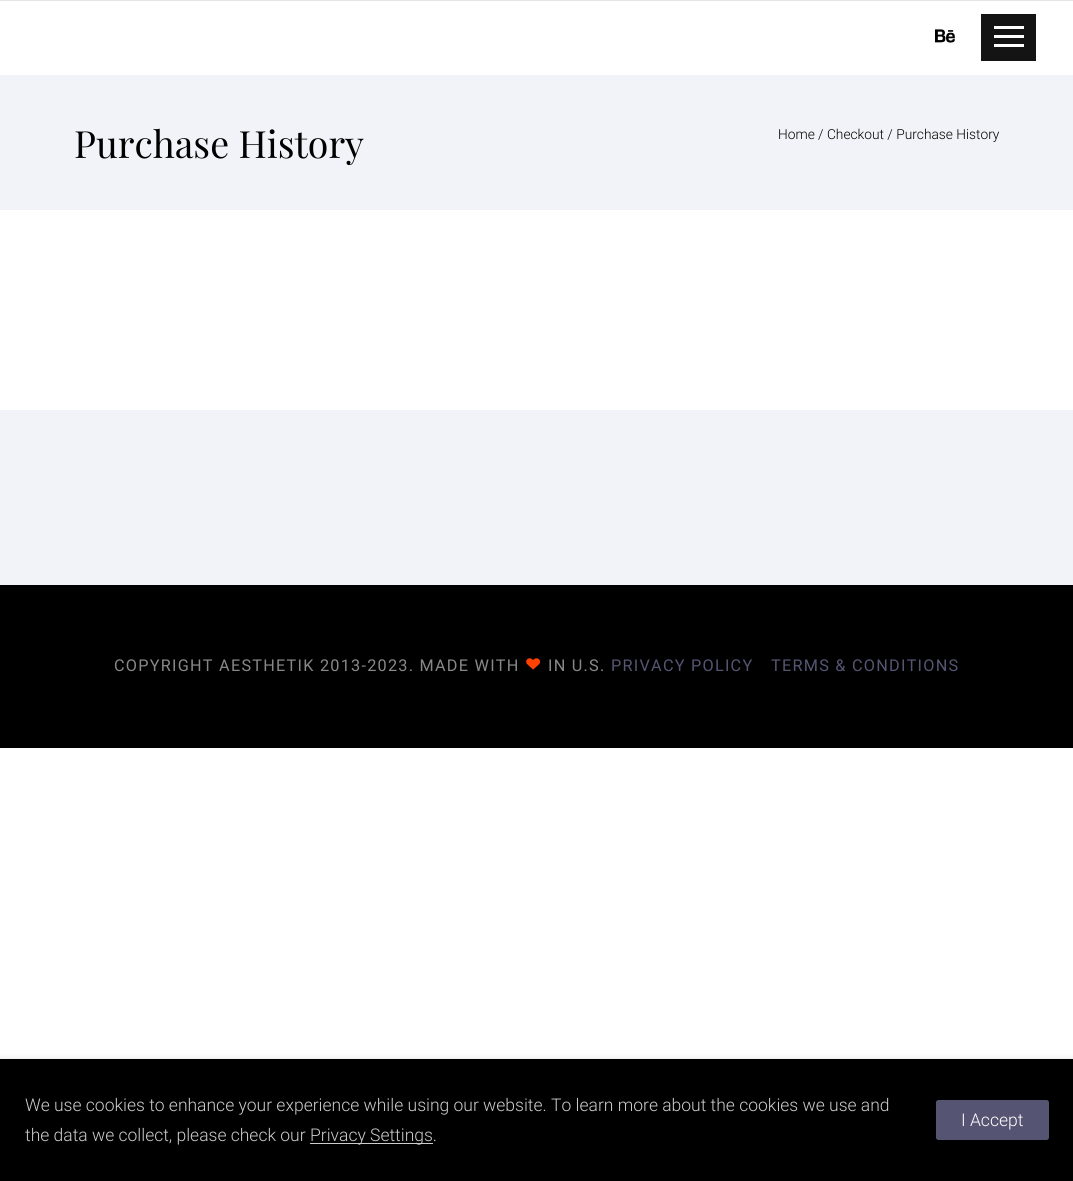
import math
import cairocffi as cairo

surface = cairo.ImageSurface(cairo.FORMAT_RGB24, 1073, 1181)
cr = cairo.Context(surface)
options = cairo.FontOptions()
options.set_hint_metrics(cairo.HINT_METRICS_OFF)
options.set_hint_style(cairo.HINT_STYLE_NONE)
cr.set_font_options(options)
cr.set_miter_limit(4)


def use_color(code):
    cr.set_source_rgb(*(v / 255 for v in bytes.fromhex(code[-6:])))


def spaced_text(x, y, s, letter, word):
    cr.move_to(x, y)
    for ch in s:
        cr.show_text(ch)
        cr.rel_move_to(letter + word * (ch == ' '), 0)


def round_rect(x, y, w, h, r):
    cr.new_sub_path()
    for i, (u, v) in enumerate([(x + w - r, y + h - r), (x + r, y + h - r), (x + r, y + r), (x + w - r, y + r)]):
        cr.arc(u, v, r, i * math.pi / 2, (i + 1) * math.pi / 2)
    cr.close_path()


def shadow(x, y, w, h, r, blur, alpha):
    cr.push_group_with_content(cairo.CONTENT_ALPHA)
    cr.set_operator(cairo.OPERATOR_SOURCE)
    for i in range(15, -16, -2):
        e = blur * i / 6
        if min(w, h) + 2 * e > 0:
            cr.set_source_rgba(0, 0, 0, alpha * math.erfc((i - 1) / 8.5) / 2)
            round_rect(x - e, y - e, w + 2 * e, h + 2 * e, max(0, min(r + e + blur * .6, min(w, h) / 2 + e)))
            cr.fill()
    cr.mask(cr.pop_group())


def picture(path, x, y, w, h):
    cr.save()
    cr.set_source_surface(cairo.ImageSurface.create_from_png(path), x, y)
    cr.rectangle(x, y, w, h)
    cr.fill()
    cr.restore()


use_color("#ffffff")
cr.paint()
use_color("#e6e6e6")
cr.rectangle(0, 0, 1073, 1)
cr.fill()
picture("img1.png", 935, 29, 20, 14)
use_color("#141414")
cr.rectangle(981, 14, 55, 47)
cr.fill()
use_color("#ffffff")
cr.rectangle(994, 26, 30, 3)
cr.fill()
cr.rectangle(994, 35, 30, 3)
cr.fill()
cr.rectangle(994, 44, 30, 3)
cr.fill()
use_color("#f2f3f8")
cr.rectangle(0, 75, 1073, 135)
cr.fill()
cr.select_font_face("Playfair Display")
cr.set_font_size(37.5)
use_color("#000000")
cr.move_to(74, 158)
cr.show_text("Purchase History")
cr.select_font_face("Roboto Light")
cr.set_font_size(13.75)
cr.move_to(778, 139)
cr.show_text("Home / Checkout / Purchase History")
use_color("#f2f3f8")
cr.rectangle(0, 410, 1073, 175)
cr.fill()
use_color("#000000")
cr.rectangle(0, 585, 1073, 163)
cr.fill()
cr.select_font_face("Roboto")
cr.set_font_size(16.25)
use_color("#888888")
spaced_text(114, 671, "COPYRIGHT AESTHETIK 2013-2023. MADE WITH", 1.25, 0)
picture("img2.png", 526, 658, 15, 12)
spaced_text(548, 671, "IN U.S.", 1.25, 0)
use_color("#555573")
spaced_text(611, 671, "PRIVACY POLICY", 1.25, 0)
spaced_text(771, 671, "TERMS & CONDITIONS", 1.25, 0)
use_color("#0c0c0d")
shadow(0, 1058, 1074, 122, 0, 2.5, 0.1)
use_color("#000000")
cr.rectangle(0, 1059, 1073, 122)
cr.fill()
cr.select_font_face("Roboto Light")
cr.set_font_size(17.5)
use_color("#cccccc")
cr.move_to(25, 1111)
cr.show_text("We use cookies to enhance your experience while using our website. To learn more about the cookies we use and")
cr.move_to(25, 1141)
cr.show_text("the data we collect, please check our")
cr.rectangle(310, 1143, 123, 1)
cr.fill()
cr.move_to(310, 1141)
cr.show_text("Privacy Settings.")
use_color("#555573")
round_rect(936, 1100, 113, 40, 2.5)
cr.fill()
use_color("#ffffff")
cr.move_to(961, 1126)
cr.show_text("I Accept")
surface.write_to_png("result.png")
